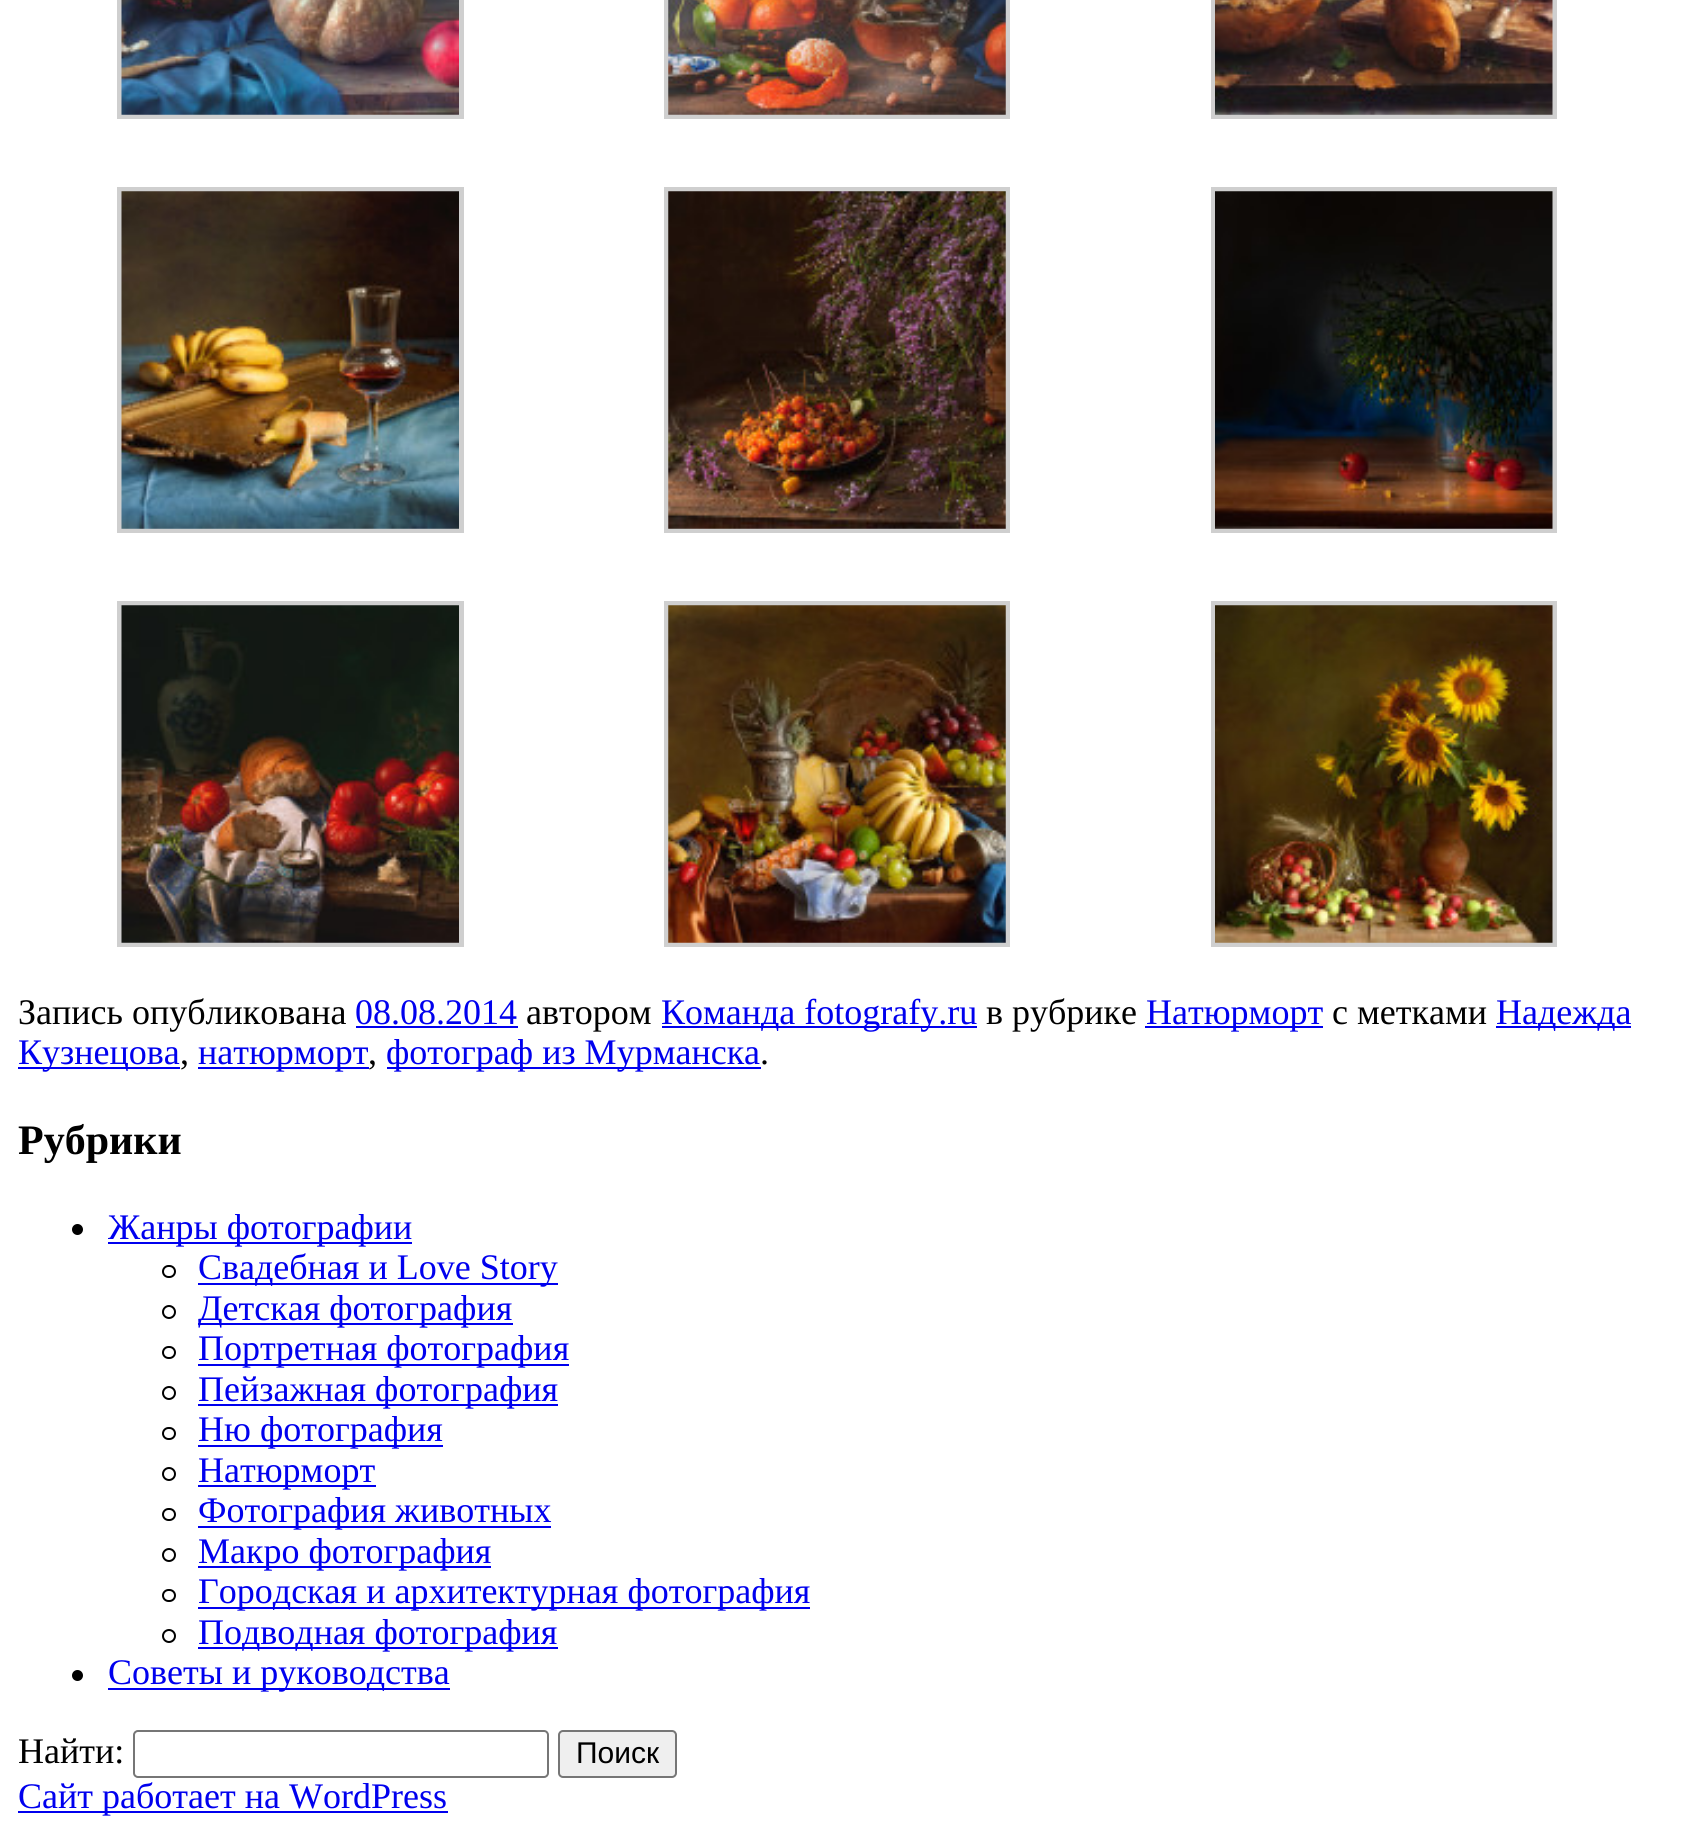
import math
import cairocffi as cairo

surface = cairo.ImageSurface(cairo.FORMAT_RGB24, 1690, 1836)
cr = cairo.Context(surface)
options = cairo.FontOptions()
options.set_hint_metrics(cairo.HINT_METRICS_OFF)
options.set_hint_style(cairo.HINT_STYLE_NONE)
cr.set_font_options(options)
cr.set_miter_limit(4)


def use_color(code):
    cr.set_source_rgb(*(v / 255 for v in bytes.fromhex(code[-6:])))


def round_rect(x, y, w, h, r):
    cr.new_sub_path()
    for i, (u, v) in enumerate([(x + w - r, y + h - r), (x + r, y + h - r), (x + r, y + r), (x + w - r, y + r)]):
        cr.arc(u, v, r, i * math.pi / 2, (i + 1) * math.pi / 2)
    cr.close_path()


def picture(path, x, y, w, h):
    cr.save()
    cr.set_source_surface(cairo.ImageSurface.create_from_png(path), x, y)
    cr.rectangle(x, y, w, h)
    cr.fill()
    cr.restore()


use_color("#ffffff")
cr.paint()
cr.rectangle(119.5, -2.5, 342, 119)
use_color("#cfcfcf")
cr.set_line_width(5)
cr.stroke()
picture("img1.png", 121, 0, 338, 115)
cr.rectangle(666.5, -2.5, 341, 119)
cr.stroke()
picture("img2.png", 668, 0, 338, 115)
cr.rectangle(1213.5, -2.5, 341, 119)
cr.stroke()
picture("img3.png", 1215, 0, 338, 115)
cr.rectangle(119.5, 189.5, 342, 341)
cr.stroke()
picture("img4.png", 121, 191, 338, 338)
cr.rectangle(666.5, 189.5, 341, 341)
cr.stroke()
picture("img5.png", 668, 191, 338, 338)
cr.rectangle(1213.5, 189.5, 341, 341)
cr.stroke()
picture("img6.png", 1215, 191, 338, 338)
cr.rectangle(119.5, 603.5, 342, 341)
cr.stroke()
picture("img7.png", 121, 605, 338, 338)
cr.rectangle(666.5, 603.5, 341, 341)
cr.stroke()
picture("img8.png", 668, 605, 338, 338)
cr.rectangle(1213.5, 603.5, 341, 341)
cr.stroke()
picture("img9.png", 1215, 605, 338, 338)
cr.select_font_face("Liberation Serif")
cr.set_font_size(36)
use_color("#000000")
cr.move_to(18, 1024)
cr.show_text("Запись опубликована")
use_color("#0000ee")
cr.move_to(355, 1024)
cr.show_text("08.08.2014")
cr.rectangle(356, 1026, 162, 2)
cr.fill()
use_color("#000000")
cr.move_to(526, 1024)
cr.show_text("автором")
use_color("#0000ee")
cr.rectangle(662, 1026, 315, 2)
cr.fill()
cr.move_to(661, 1024)
cr.show_text("Команда fotografy.ru")
use_color("#000000")
cr.move_to(986, 1024)
cr.show_text("в рубрике")
use_color("#0000ee")
cr.rectangle(1145, 1026, 178, 2)
cr.fill()
cr.move_to(1146, 1024)
cr.show_text("Натюрморт")
use_color("#000000")
cr.move_to(1332, 1024)
cr.show_text("с метками")
use_color("#0000ee")
cr.rectangle(1496, 1026, 135, 2)
cr.fill()
cr.move_to(1496, 1024)
cr.show_text("Надежда")
cr.rectangle(18, 1067, 162, 2)
cr.fill()
cr.move_to(18, 1064)
cr.show_text("Кузнецова")
use_color("#000000")
cr.move_to(180, 1064)
cr.show_text(",")
use_color("#0000ee")
cr.rectangle(198, 1067, 171, 2)
cr.fill()
cr.move_to(198, 1064)
cr.show_text("натюрморт")
use_color("#000000")
cr.move_to(368, 1064)
cr.show_text(",")
use_color("#0000ee")
cr.rectangle(387, 1067, 374, 2)
cr.fill()
cr.move_to(386, 1064)
cr.show_text("фотограф из Мурманска")
use_color("#000000")
cr.move_to(760, 1064)
cr.show_text(".")
cr.select_font_face("Liberation Serif", cairo.FONT_SLANT_NORMAL, cairo.FONT_WEIGHT_BOLD)
cr.set_font_size(42)
cr.move_to(18, 1154)
cr.show_text("Рубрики")
cr.new_path()
cr.arc(77.5, 1229.5, 5.5, 0, 2 * math.pi)
cr.fill()
use_color("#0000ee")
cr.rectangle(108, 1242, 304, 2)
cr.fill()
cr.select_font_face("Liberation Serif")
cr.set_font_size(36)
cr.move_to(108, 1239)
cr.show_text("Жанры фотографии")
round_rect(163, 1266, 12, 11, 5.5)
use_color("#000000")
cr.set_line_width(2)
cr.stroke()
use_color("#0000ee")
cr.rectangle(198, 1283, 360, 2)
cr.fill()
cr.move_to(198, 1279)
cr.show_text("Свадебная и Love Story")
cr.new_path()
cr.arc(169, 1312, 6, 0, 2 * math.pi)
use_color("#000000")
cr.stroke()
use_color("#0000ee")
cr.rectangle(198, 1323, 315, 2)
cr.fill()
cr.move_to(198, 1320)
cr.show_text("Детская фотография")
round_rect(163, 1347, 12, 11, 5.5)
use_color("#000000")
cr.stroke()
use_color("#0000ee")
cr.rectangle(198, 1364, 371, 2)
cr.fill()
cr.move_to(198, 1360)
cr.show_text("Портретная фотография")
cr.new_path()
cr.arc(169, 1393, 6, 0, 2 * math.pi)
use_color("#000000")
cr.stroke()
use_color("#0000ee")
cr.rectangle(198, 1404, 360, 2)
cr.fill()
cr.move_to(198, 1401)
cr.show_text("Пейзажная фотография")
round_rect(163, 1428, 12, 11, 5.5)
use_color("#000000")
cr.stroke()
use_color("#0000ee")
cr.rectangle(198, 1445, 245, 2)
cr.fill()
cr.move_to(198, 1441)
cr.show_text("Ню фотография")
cr.new_path()
cr.arc(169, 1474, 6, 0, 2 * math.pi)
use_color("#000000")
cr.stroke()
use_color("#0000ee")
cr.rectangle(198, 1485, 178, 2)
cr.fill()
cr.move_to(198, 1482)
cr.show_text("Натюрморт")
round_rect(163, 1509, 12, 11, 5.5)
use_color("#000000")
cr.stroke()
use_color("#0000ee")
cr.rectangle(198, 1526, 353, 2)
cr.fill()
cr.move_to(198, 1522)
cr.show_text("Фотография животных")
cr.new_path()
cr.arc(169, 1555, 6, 0, 2 * math.pi)
use_color("#000000")
cr.stroke()
use_color("#0000ee")
cr.rectangle(198, 1566, 293, 2)
cr.fill()
cr.move_to(198, 1563)
cr.show_text("Макро фотография")
round_rect(163, 1590, 12, 11, 5.5)
use_color("#000000")
cr.stroke()
use_color("#0000ee")
cr.rectangle(198, 1607, 612, 2)
cr.fill()
cr.move_to(198, 1603)
cr.show_text("Городская и архитектурная фотография")
cr.new_path()
cr.arc(169, 1636, 6, 0, 2 * math.pi)
use_color("#000000")
cr.stroke()
use_color("#0000ee")
cr.rectangle(198, 1647, 360, 2)
cr.fill()
cr.move_to(198, 1644)
cr.show_text("Подводная фотография")
use_color("#000000")
cr.new_path()
cr.arc(77.5, 1675.5, 5.5, 0, 2 * math.pi)
cr.fill()
use_color("#0000ee")
cr.rectangle(108, 1688, 342, 2)
cr.fill()
cr.move_to(108, 1684)
cr.show_text("Советы и руководства")
use_color("#000000")
cr.move_to(18, 1763)
cr.show_text("Найти:")
round_rect(134, 1731, 414, 46, 4)
use_color("#767676")
cr.stroke()
use_color("#efefef")
round_rect(559, 1731, 117, 46, 4)
cr.fill_preserve()
use_color("#767676")
cr.stroke()
cr.select_font_face("Liberation Sans")
cr.set_font_size(30)
use_color("#000000")
cr.move_to(576, 1763)
cr.show_text("Поиск")
use_color("#0000ee")
cr.rectangle(18, 1811, 430, 2)
cr.fill()
cr.select_font_face("Liberation Serif")
cr.set_font_size(36)
cr.move_to(18, 1808)
cr.show_text("Сайт работает на WordPress")
surface.write_to_png("result.png")
